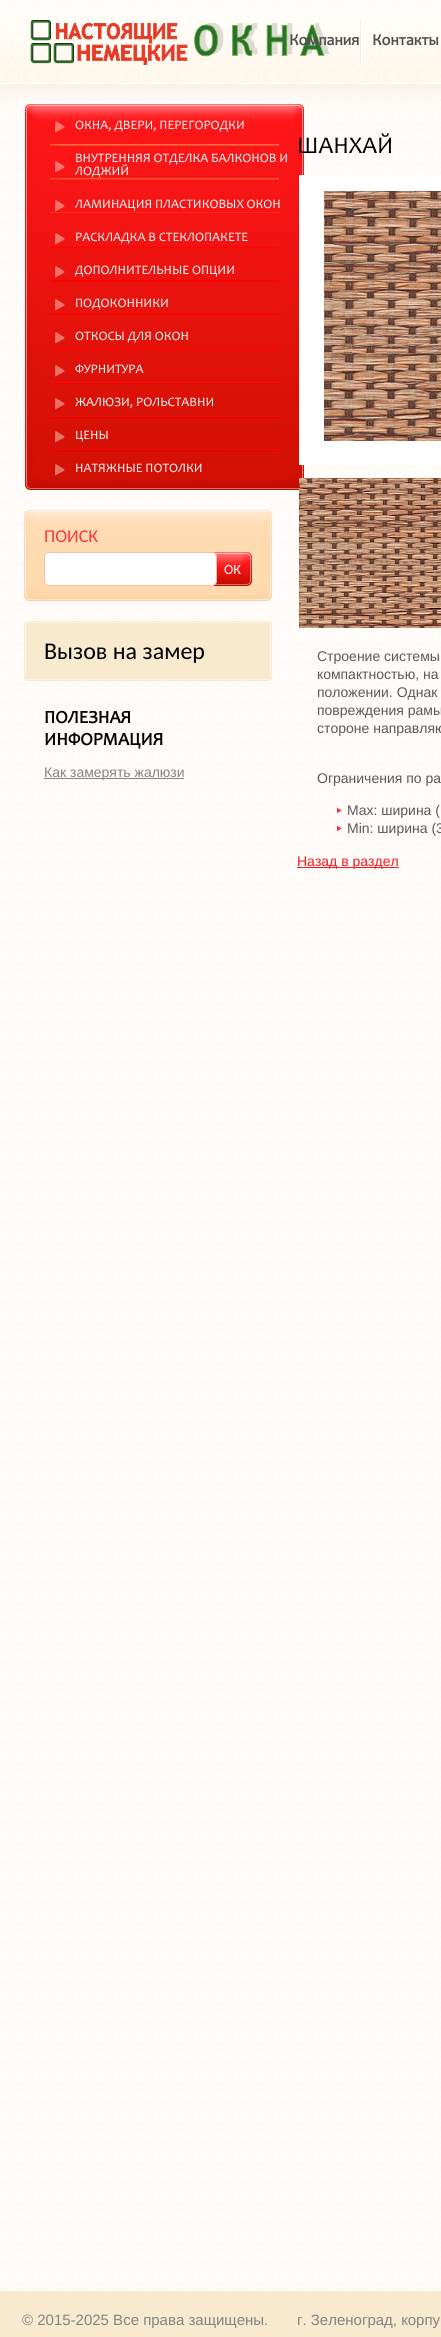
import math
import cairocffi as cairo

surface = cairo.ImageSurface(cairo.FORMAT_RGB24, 441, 2337)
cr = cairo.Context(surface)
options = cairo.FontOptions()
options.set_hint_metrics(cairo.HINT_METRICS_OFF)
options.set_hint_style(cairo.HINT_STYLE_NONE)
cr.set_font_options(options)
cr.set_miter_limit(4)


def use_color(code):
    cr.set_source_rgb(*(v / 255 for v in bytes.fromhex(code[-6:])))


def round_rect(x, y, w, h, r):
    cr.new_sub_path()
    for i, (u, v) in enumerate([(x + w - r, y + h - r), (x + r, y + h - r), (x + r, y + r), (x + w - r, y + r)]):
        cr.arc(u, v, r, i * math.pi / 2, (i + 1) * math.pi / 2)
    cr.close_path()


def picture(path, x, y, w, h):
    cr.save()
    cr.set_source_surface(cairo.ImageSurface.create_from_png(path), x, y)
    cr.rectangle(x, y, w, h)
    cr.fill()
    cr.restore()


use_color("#ffffff")
cr.paint()
picture("img1.png", 0, 104, 441, 2187)
picture("img2.png", 0, 0, 441, 84)
picture("img3.png", 30, 20, 300, 45)
use_color("#f4f0e7")
cr.rectangle(360, 20, 1, 45)
cr.fill()
cr.select_font_face("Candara", cairo.FONT_SLANT_NORMAL, cairo.FONT_WEIGHT_BOLD)
cr.set_font_size(16)
use_color("#505050")
cr.move_to(289, 45)
cr.show_text("Компания")
use_color("#ffffff")
cr.rectangle(361, 20, 1, 45)
cr.fill()
use_color("#505050")
cr.move_to(372, 45)
cr.show_text("Контакты")
picture("img4.png", 0, 84, 441, 20)
picture("img5.png", 25, 104, 254, 386)
picture("img6.png", 55, 121, 10, 12)
cr.select_font_face("Candara")
cr.set_font_size(13)
use_color("#ffffff")
cr.move_to(75, 129)
cr.show_text("ОКНА, ДВЕРИ, ПЕРЕГОРОДКИ")
picture("img7.png", 55, 161, 10, 12)
picture("img17.png", 279, 104, 25, 386)
cr.move_to(75, 162)
cr.show_text("ВНУТРЕННЯЯ ОТДЕЛКА БАЛКОНОВ И")
cr.move_to(75, 175)
cr.show_text("ЛОДЖИЙ")
picture("img8.png", 55, 200, 10, 12)
cr.move_to(75, 208)
cr.show_text("ЛАМИНАЦИЯ ПЛАСТИКОВЫХ ОКОН")
picture("img9.png", 55, 233, 10, 12)
cr.move_to(75, 241)
cr.show_text("РАСКЛАДКА В СТЕКЛОПАКЕТЕ")
picture("img10.png", 55, 266, 10, 12)
cr.move_to(75, 274)
cr.show_text("ДОПОЛНИТЕЛЬНЫЕ ОПЦИИ")
picture("img11.png", 55, 299, 10, 12)
cr.move_to(75, 307)
cr.show_text("ПОДОКОННИКИ")
picture("img12.png", 55, 332, 10, 12)
cr.move_to(75, 340)
cr.show_text("ОТКОСЫ ДЛЯ ОКОН")
picture("img13.png", 55, 365, 10, 12)
cr.move_to(75, 373)
cr.show_text("ФУРНИТУРА")
picture("img14.png", 55, 398, 10, 12)
cr.move_to(75, 406)
cr.show_text("ЖАЛЮЗИ, РОЛЬСТАВНИ")
picture("img15.png", 55, 431, 10, 12)
cr.move_to(75, 439)
cr.show_text("ЦЕНЫ")
picture("img16.png", 55, 464, 10, 12)
cr.move_to(75, 472)
cr.show_text("НАТЯЖНЫЕ ПОТОЛКИ")
picture("img18.png", 24, 510, 228, 91)
cr.select_font_face("Carlito")
cr.set_font_size(18)
use_color("#ff3538")
cr.move_to(44, 542)
cr.show_text("ПОИСК")
picture("img19.png", 212, 552, 40, 34)
use_color("#ffffff")
round_rect(44.5, 552.5, 172, 33, 4.5)
cr.fill_preserve()
use_color("#fbc29a")
cr.set_line_width(1)
cr.stroke()
cr.set_font_size(14)
use_color("#ffffff")
cr.move_to(224, 574)
cr.show_text("ОК")
picture("img20.png", 252, 510, 20, 91)
picture("img21.png", 24, 621, 228, 60)
cr.set_font_size(24)
use_color("#000000")
cr.move_to(44, 659)
cr.show_text("Вызов на замер")
picture("img22.png", 252, 621, 20, 60)
cr.select_font_face("Candara", cairo.FONT_SLANT_NORMAL, cairo.FONT_WEIGHT_BOLD)
cr.set_font_size(18)
cr.move_to(44, 723)
cr.show_text("ПОЛЕЗНАЯ")
cr.move_to(44, 745)
cr.show_text("ИНФОРМАЦИЯ")
use_color("#848484")
cr.rectangle(44, 778, 140, 1)
cr.fill()
cr.select_font_face("Liberation Sans")
cr.set_font_size(14)
cr.move_to(44, 777)
cr.show_text("Как замерять жалюзи")
cr.select_font_face("Candara")
cr.set_font_size(24)
use_color("#000000")
cr.move_to(297, 153)
cr.show_text("ШАНХАЙ")
picture("img23.png", 299, 175, 142, 290)
picture("img24.png", 299, 478, 142, 150)
cr.select_font_face("Liberation Sans")
cr.set_font_size(14)
use_color("#595959")
cr.move_to(317, 661)
cr.show_text("Строение системы")
cr.move_to(317, 679)
cr.show_text("компактностью, на")
cr.move_to(317, 697)
cr.show_text("положении. Однак")
cr.move_to(317, 715)
cr.show_text("повреждения рамы")
cr.move_to(317, 733)
cr.show_text("стороне направляю")
cr.move_to(317, 783)
cr.show_text("Ограничения по ра")
picture("img25.png", 337, 807, 5, 7)
cr.move_to(347, 815)
cr.show_text("Max: ширина (")
picture("img26.png", 337, 825, 5, 7)
cr.move_to(347, 833)
cr.show_text("Min: ширина (3")
use_color("#ff181c")
cr.rectangle(297, 867, 102, 1)
cr.fill()
cr.move_to(297, 866)
cr.show_text("Назад в раздел")
use_color("#f7eacf")
cr.rectangle(0, 2291, 441, 46)
cr.fill()
cr.set_font_size(15)
use_color("#848484")
cr.move_to(22, 2325)
cr.show_text("© 2015-2025 Все права защищены.")
cr.move_to(297, 2325)
cr.show_text("г. Зеленоград, корпу")
surface.write_to_png("result.png")
